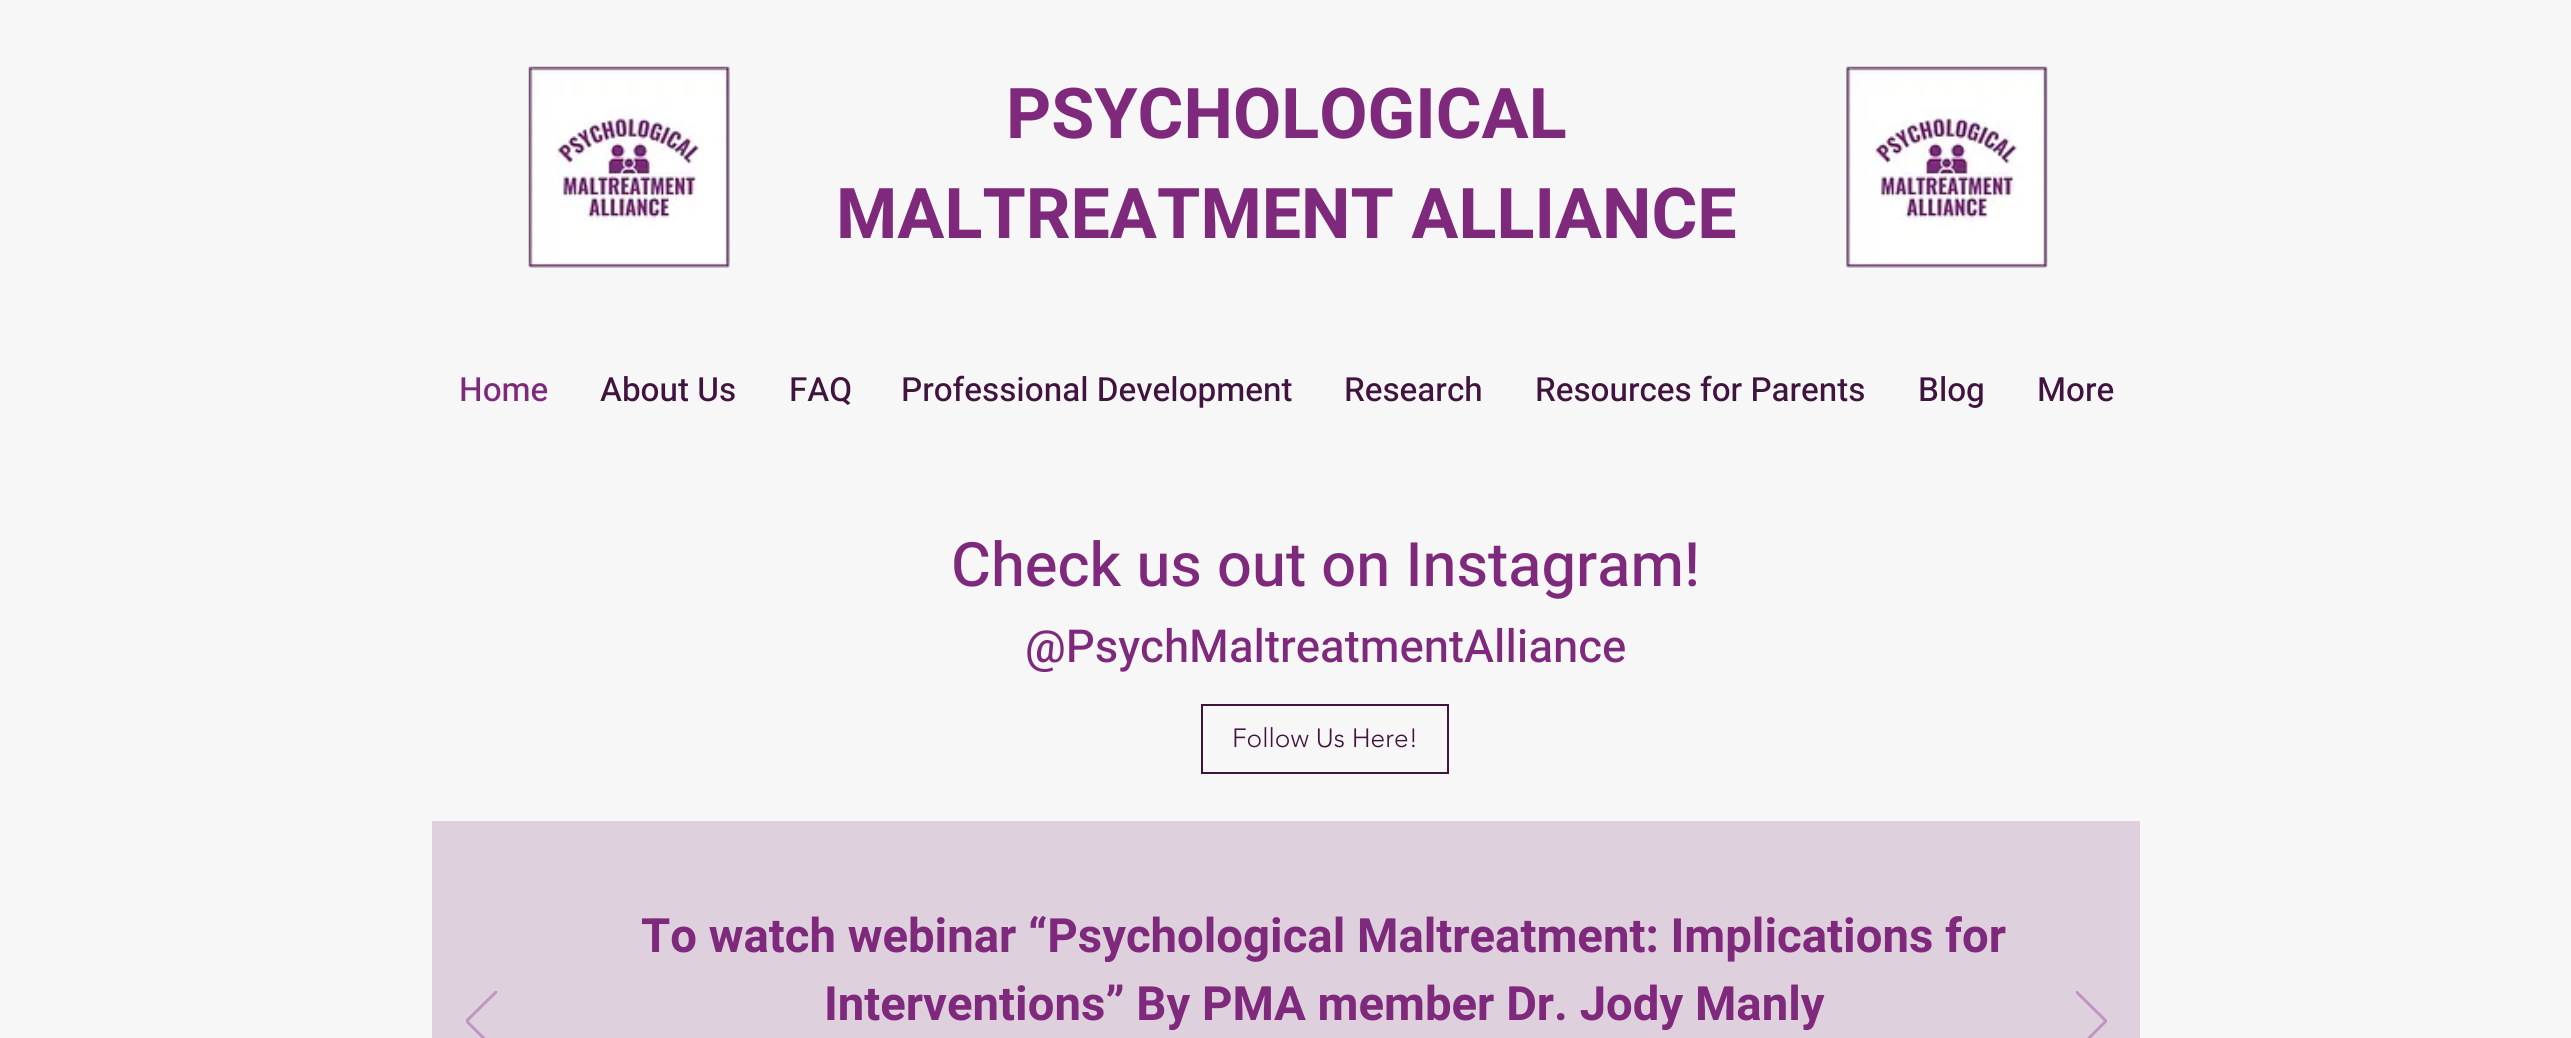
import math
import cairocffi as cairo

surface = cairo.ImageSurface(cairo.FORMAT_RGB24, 2571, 1038)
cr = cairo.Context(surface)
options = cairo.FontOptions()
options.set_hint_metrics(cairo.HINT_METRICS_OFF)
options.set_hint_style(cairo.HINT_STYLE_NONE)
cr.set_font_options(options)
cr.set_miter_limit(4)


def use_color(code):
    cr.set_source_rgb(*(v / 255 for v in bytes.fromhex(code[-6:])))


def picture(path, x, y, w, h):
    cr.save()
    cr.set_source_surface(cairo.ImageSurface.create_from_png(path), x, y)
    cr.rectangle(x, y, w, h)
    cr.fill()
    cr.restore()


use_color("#f7f7f7")
cr.paint()
picture("img1.png", 528, 66, 202, 202)
cr.select_font_face("Heebo", cairo.FONT_SLANT_NORMAL, cairo.FONT_WEIGHT_BOLD)
cr.set_font_size(70)
use_color("#7f297d")
cr.move_to(1006, 138)
cr.show_text("PSYCHOLOGICAL")
cr.move_to(836, 238)
cr.show_text("MALTREATMENT ALLIANCE")
picture("img2.png", 1846, 66, 202, 202)
cr.select_font_face("Heebo Medium")
cr.set_font_size(33.25)
cr.move_to(459, 401)
cr.show_text("Home")
use_color("#40143f")
cr.move_to(600, 401)
cr.show_text("About Us")
cr.move_to(789, 401)
cr.show_text("FAQ")
cr.move_to(901, 401)
cr.show_text("Professional Development")
cr.move_to(1344, 401)
cr.show_text("Research")
cr.move_to(1535, 401)
cr.show_text("Resources for Parents")
cr.move_to(1918, 401)
cr.show_text("Blog")
cr.move_to(2037, 401)
cr.show_text("More")
cr.set_font_size(61.25)
use_color("#7f297d")
cr.move_to(951, 586)
cr.show_text("Check us out on Instagram!")
cr.set_font_size(45.5)
cr.move_to(1025, 662)
cr.show_text("@PsychMaltreatmentAlliance")
cr.rectangle(1202, 705, 246, 68)
use_color("#40143f")
cr.stroke()
cr.select_font_face("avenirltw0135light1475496 Light")
cr.set_font_size(26.25)
cr.move_to(1232, 747)
cr.show_text("Follow Us Here!")
use_color("#ded1dd")
cr.rectangle(432, 821, 1708, 217)
cr.fill()
cr.save()
cr.rectangle(466, 991, 31, 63)
cr.clip()
cr.new_path()
cr.move_to(496, 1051.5)
cr.line_to(465.5, 1021)
cr.line_to(496, 991)
cr.line_to(497, 992)
cr.line_to(467.5, 1021)
cr.line_to(497, 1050.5)
cr.close_path()
use_color("#bf94be")
cr.set_line_width(1.5)
cr.stroke()
cr.restore()
cr.select_font_face("Heebo", cairo.FONT_SLANT_NORMAL, cairo.FONT_WEIGHT_BOLD)
cr.set_font_size(47.25)
use_color("#7f297d")
cr.move_to(641, 952)
cr.show_text("To watch webinar “Psychological Maltreatment: Implications for")
cr.move_to(824, 1020)
cr.show_text("Interventions” By PMA member Dr. Jody Manly")
cr.save()
cr.rectangle(2076, 991, 31, 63)
cr.clip()
cr.new_path()
cr.move_to(2076.5, 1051.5)
cr.line_to(2107, 1021)
cr.line_to(2076.5, 991)
cr.line_to(2075.5, 992)
cr.line_to(2105, 1021)
cr.line_to(2075.5, 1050.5)
cr.close_path()
use_color("#bf94be")
cr.set_line_width(1.5)
cr.stroke()
cr.restore()
surface.write_to_png("result.png")
